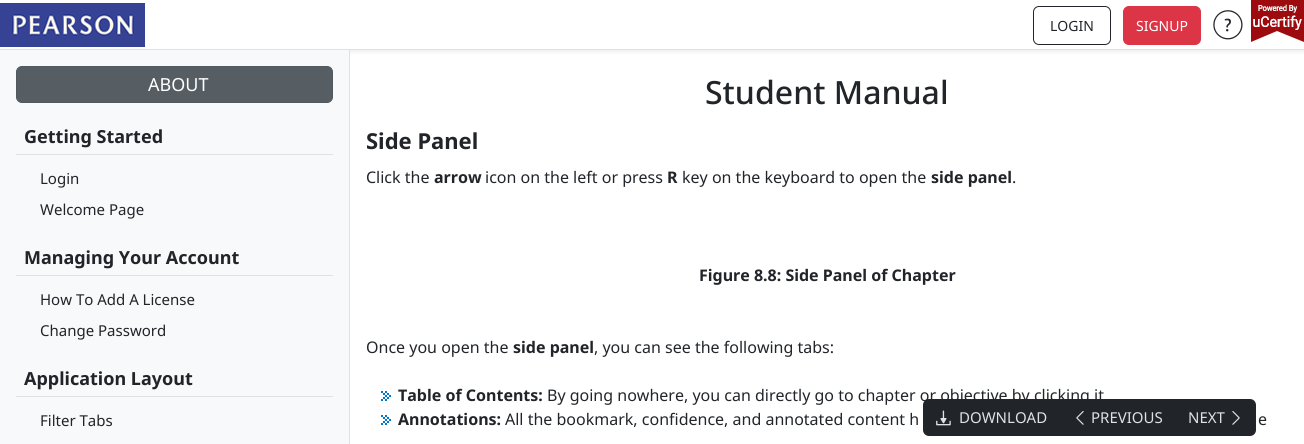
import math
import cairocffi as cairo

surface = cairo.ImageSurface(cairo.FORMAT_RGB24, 1304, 444)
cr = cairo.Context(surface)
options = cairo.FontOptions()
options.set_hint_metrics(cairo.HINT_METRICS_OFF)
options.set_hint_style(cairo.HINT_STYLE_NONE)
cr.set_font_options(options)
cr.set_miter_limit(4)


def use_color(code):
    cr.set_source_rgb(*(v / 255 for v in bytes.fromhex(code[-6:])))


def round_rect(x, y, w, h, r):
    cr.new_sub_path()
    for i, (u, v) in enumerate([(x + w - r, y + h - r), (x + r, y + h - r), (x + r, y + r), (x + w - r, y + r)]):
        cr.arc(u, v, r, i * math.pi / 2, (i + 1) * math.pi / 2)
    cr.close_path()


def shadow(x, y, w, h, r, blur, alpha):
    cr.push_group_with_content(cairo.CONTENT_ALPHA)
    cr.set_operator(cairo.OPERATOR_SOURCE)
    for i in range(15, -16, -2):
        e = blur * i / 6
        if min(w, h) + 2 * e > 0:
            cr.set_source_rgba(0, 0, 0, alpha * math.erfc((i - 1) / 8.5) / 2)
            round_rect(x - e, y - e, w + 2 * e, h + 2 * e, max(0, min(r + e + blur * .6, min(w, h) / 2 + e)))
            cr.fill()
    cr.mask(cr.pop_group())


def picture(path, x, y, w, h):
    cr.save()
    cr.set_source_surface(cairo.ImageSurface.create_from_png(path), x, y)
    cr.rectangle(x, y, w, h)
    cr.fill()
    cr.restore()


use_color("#ffffff")
cr.paint()
use_color("#000000")
shadow(0, 2, 1304, 50, 0, 2, 0.07)
use_color("#ffffff")
cr.rectangle(0, 0, 1304, 49)
cr.fill()
use_color("#dee2e6")
cr.rectangle(0, 49, 1304, 1)
cr.fill()
picture("img1.png", 0, 3, 145, 44)
round_rect(1033.5, 6.5, 77, 38, 5.5)
use_color("#212529")
cr.set_line_width(1)
cr.stroke()
cr.select_font_face("Noto Sans")
cr.set_font_size(14)
cr.move_to(1050, 31)
cr.show_text("LOGIN")
use_color("#dc3545")
round_rect(1123.5, 6.5, 77, 38, 5.5)
cr.fill_preserve()
cr.stroke()
use_color("#ffffff")
cr.move_to(1136, 31)
cr.show_text("SIGNUP")
picture("img2.png", 1213, 10, 30, 30)
picture("img3.png", 1251, 0, 53, 42)
use_color("#f8f9fa")
cr.rectangle(0, 50, 349, 394)
cr.fill()
use_color("#dee2e6")
cr.rectangle(349, 50, 1, 394)
cr.fill()
use_color("#565e64")
round_rect(16.5, 66.5, 316, 36, 5.5)
cr.fill_preserve()
use_color("#51585e")
cr.stroke()
cr.set_font_size(18)
use_color("#ffffff")
cr.move_to(148, 91)
cr.show_text("ABOUT")
use_color("#dee2e6")
cr.rectangle(16, 154, 317, 1)
cr.fill()
cr.select_font_face("Noto Sans", cairo.FONT_SLANT_NORMAL, cairo.FONT_WEIGHT_BOLD)
use_color("#212529")
cr.move_to(24, 143)
cr.show_text("Getting Started")
cr.select_font_face("Noto Sans")
cr.set_font_size(15)
cr.move_to(40, 184)
cr.show_text("Login")
cr.move_to(40, 215)
cr.show_text("Welcome Page")
use_color("#dee2e6")
cr.rectangle(16, 275, 317, 1)
cr.fill()
cr.select_font_face("Noto Sans", cairo.FONT_SLANT_NORMAL, cairo.FONT_WEIGHT_BOLD)
cr.set_font_size(18)
use_color("#212529")
cr.move_to(24, 264)
cr.show_text("Managing Your Account")
cr.select_font_face("Noto Sans")
cr.set_font_size(15)
cr.move_to(40, 305)
cr.show_text("How To Add A License")
cr.move_to(40, 336)
cr.show_text("Change Password")
use_color("#dee2e6")
cr.rectangle(16, 396, 317, 1)
cr.fill()
cr.select_font_face("Noto Sans", cairo.FONT_SLANT_NORMAL, cairo.FONT_WEIGHT_BOLD)
cr.set_font_size(18)
use_color("#212529")
cr.move_to(24, 385)
cr.show_text("Application Layout")
cr.select_font_face("Noto Sans")
cr.set_font_size(15)
cr.move_to(40, 426)
cr.show_text("Filter Tabs")
cr.select_font_face("Noto Sans Medium")
cr.set_font_size(32)
cr.move_to(705, 104)
cr.show_text("Student Manual")
cr.select_font_face("Noto Sans", cairo.FONT_SLANT_NORMAL, cairo.FONT_WEIGHT_BOLD)
cr.set_font_size(22)
cr.move_to(366, 149)
cr.show_text("Side Panel")
cr.select_font_face("Noto Sans")
cr.set_font_size(16)
cr.move_to(366, 183)
cr.show_text("Click the")
cr.select_font_face("Noto Sans", cairo.FONT_SLANT_NORMAL, cairo.FONT_WEIGHT_BOLD)
cr.move_to(434, 183)
cr.show_text("arrow")
cr.select_font_face("Noto Sans")
cr.move_to(485, 183)
cr.show_text("icon on the left or press")
cr.select_font_face("Noto Sans", cairo.FONT_SLANT_NORMAL, cairo.FONT_WEIGHT_BOLD)
cr.move_to(667, 183)
cr.show_text("R")
cr.select_font_face("Noto Sans")
cr.move_to(682, 183)
cr.show_text("key on the keyboard to open the")
cr.select_font_face("Noto Sans", cairo.FONT_SLANT_NORMAL, cairo.FONT_WEIGHT_BOLD)
cr.move_to(931, 183)
cr.show_text("side panel")
cr.select_font_face("Noto Sans")
cr.move_to(1012, 183)
cr.show_text(".")
cr.select_font_face("Noto Sans", cairo.FONT_SLANT_NORMAL, cairo.FONT_WEIGHT_BOLD)
cr.move_to(699, 281)
cr.show_text("Figure 8.8: Side Panel of Chapter")
cr.select_font_face("Noto Sans")
cr.move_to(366, 353)
cr.show_text("Once you open the")
cr.select_font_face("Noto Sans", cairo.FONT_SLANT_NORMAL, cairo.FONT_WEIGHT_BOLD)
cr.move_to(513, 353)
cr.show_text("side panel")
cr.select_font_face("Noto Sans")
cr.move_to(594, 353)
cr.show_text(", you can see the following tabs:")
picture("img4.png", 381, 391, 10, 10)
cr.select_font_face("Noto Sans", cairo.FONT_SLANT_NORMAL, cairo.FONT_WEIGHT_BOLD)
cr.move_to(398, 401)
cr.show_text("Table of Contents:")
cr.select_font_face("Noto Sans")
cr.move_to(547, 401)
cr.show_text("By going nowhere, you can directly go to chapter or objective by clicking it")
picture("img4.png", 381, 415, 10, 10)
cr.select_font_face("Noto Sans", cairo.FONT_SLANT_NORMAL, cairo.FONT_WEIGHT_BOLD)
cr.move_to(398, 425)
cr.show_text("Annotations:")
cr.select_font_face("Noto Sans")
cr.move_to(505, 425)
cr.show_text("All the bookmark, confidence, and annotated content h")
cr.move_to(1258, 425)
cr.show_text("e")
round_rect(923, 399, 333, 37, 6)
cr.fill()
picture("img5.png", 936, 410, 15, 16)
cr.set_font_size(15)
use_color("#dee2e6")
cr.move_to(959, 423)
cr.show_text("DOWNLOAD")
picture("img6.png", 1076, 411, 8, 14)
cr.move_to(1091, 423)
cr.show_text("PREVIOUS")
cr.move_to(1188, 423)
cr.show_text("NEXT")
picture("img7.png", 1232, 411, 8, 14)
surface.write_to_png("result.png")
